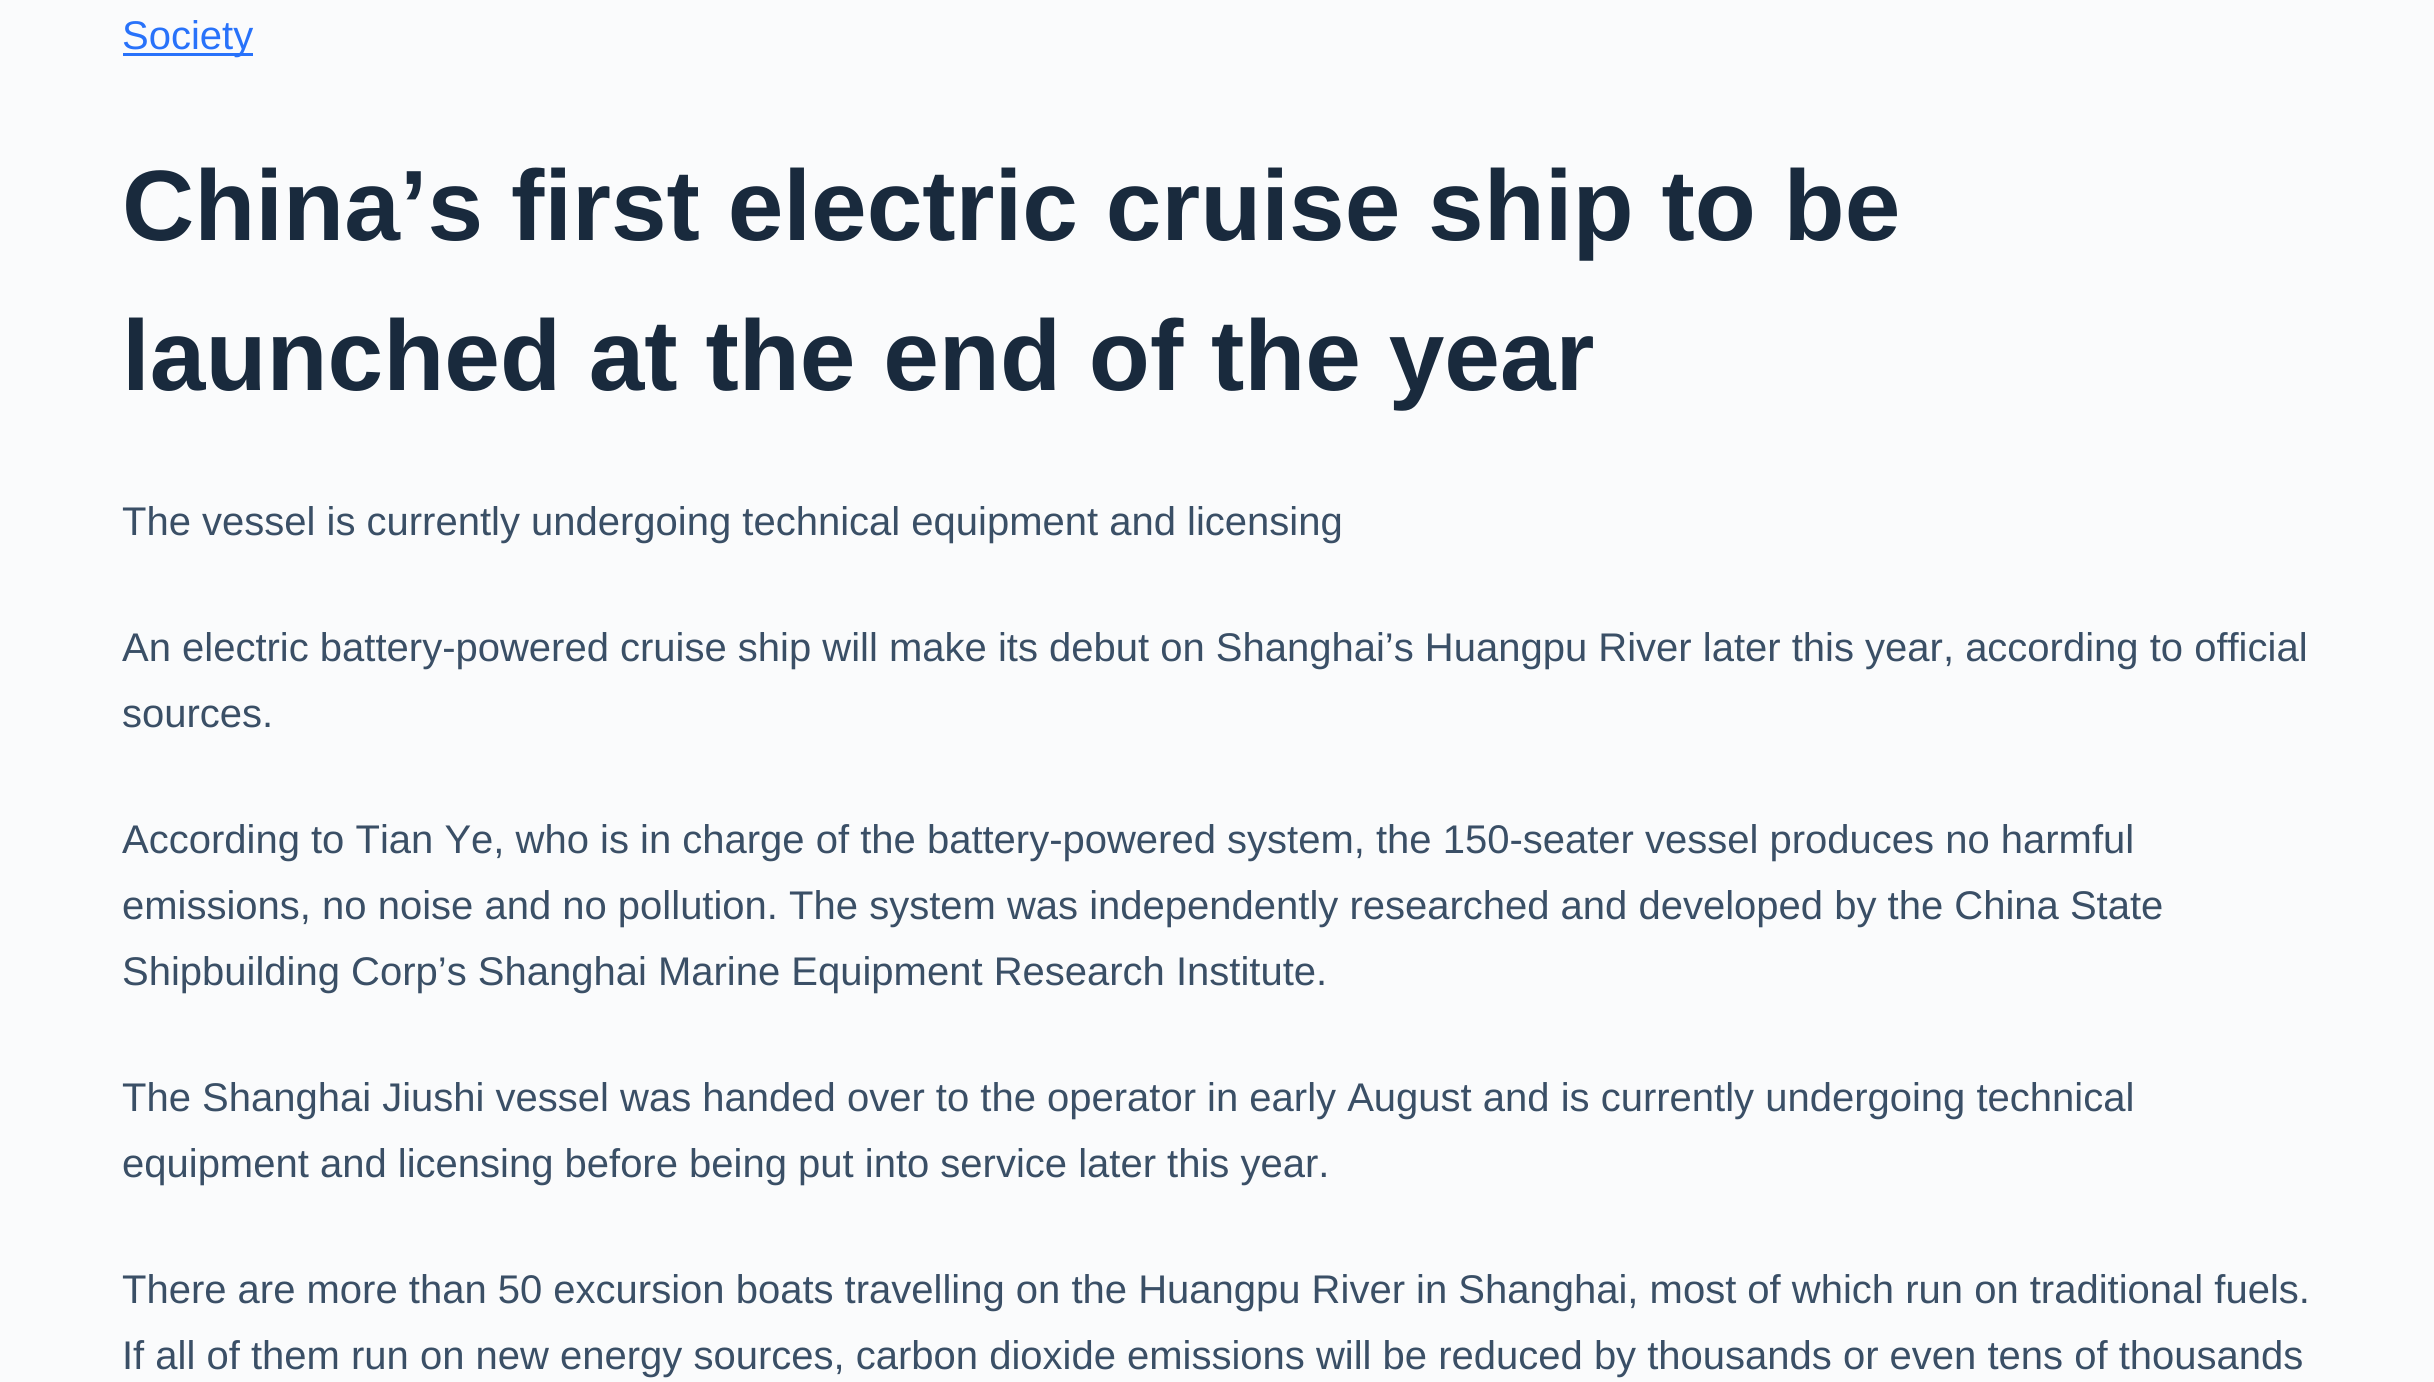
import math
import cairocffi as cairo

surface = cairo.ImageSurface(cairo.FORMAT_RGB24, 2434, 1382)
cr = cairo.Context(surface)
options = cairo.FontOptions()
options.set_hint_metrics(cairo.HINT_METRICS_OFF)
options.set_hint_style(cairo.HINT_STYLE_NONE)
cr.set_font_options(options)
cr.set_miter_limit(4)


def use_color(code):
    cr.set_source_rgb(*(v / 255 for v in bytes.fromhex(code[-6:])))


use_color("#fafbfc")
cr.paint()
use_color("#2872fa")
cr.rectangle(123, 53, 130, 3)
cr.fill()
cr.select_font_face("Liberation Sans")
cr.set_font_size(40)
cr.move_to(122, 49)
cr.show_text("Society")
cr.select_font_face("Liberation Sans", cairo.FONT_SLANT_NORMAL, cairo.FONT_WEIGHT_BOLD)
cr.set_font_size(100)
use_color("#192a3d")
cr.move_to(122, 240)
cr.show_text("China’s first electric cruise ship to be")
cr.move_to(122, 390)
cr.show_text("launched at the end of the year")
cr.select_font_face("Liberation Sans")
cr.set_font_size(40)
use_color("#3a4f66")
cr.move_to(122, 535)
cr.show_text("The vessel is currently undergoing technical equipment and licensing")
cr.move_to(122, 661)
cr.show_text("An electric battery-powered cruise ship will make its debut on Shanghai’s Huangpu River later this year, according to official")
cr.move_to(122, 727)
cr.show_text("sources.")
cr.move_to(122, 853)
cr.show_text("According to Tian Ye, who is in charge of the battery-powered system, the 150-seater vessel produces no harmful")
cr.move_to(122, 919)
cr.show_text("emissions, no noise and no pollution. The system was independently researched and developed by the China State")
cr.move_to(122, 985)
cr.show_text("Shipbuilding Corp’s Shanghai Marine Equipment Research Institute.")
cr.move_to(122, 1111)
cr.show_text("The Shanghai Jiushi vessel was handed over to the operator in early August and is currently undergoing technical")
cr.move_to(122, 1177)
cr.show_text("equipment and licensing before being put into service later this year.")
cr.move_to(122, 1303)
cr.show_text("There are more than 50 excursion boats travelling on the Huangpu River in Shanghai, most of which run on traditional fuels.")
cr.move_to(122, 1369)
cr.show_text("If all of them run on new energy sources, carbon dioxide emissions will be reduced by thousands or even tens of thousands")
surface.write_to_png("result.png")
